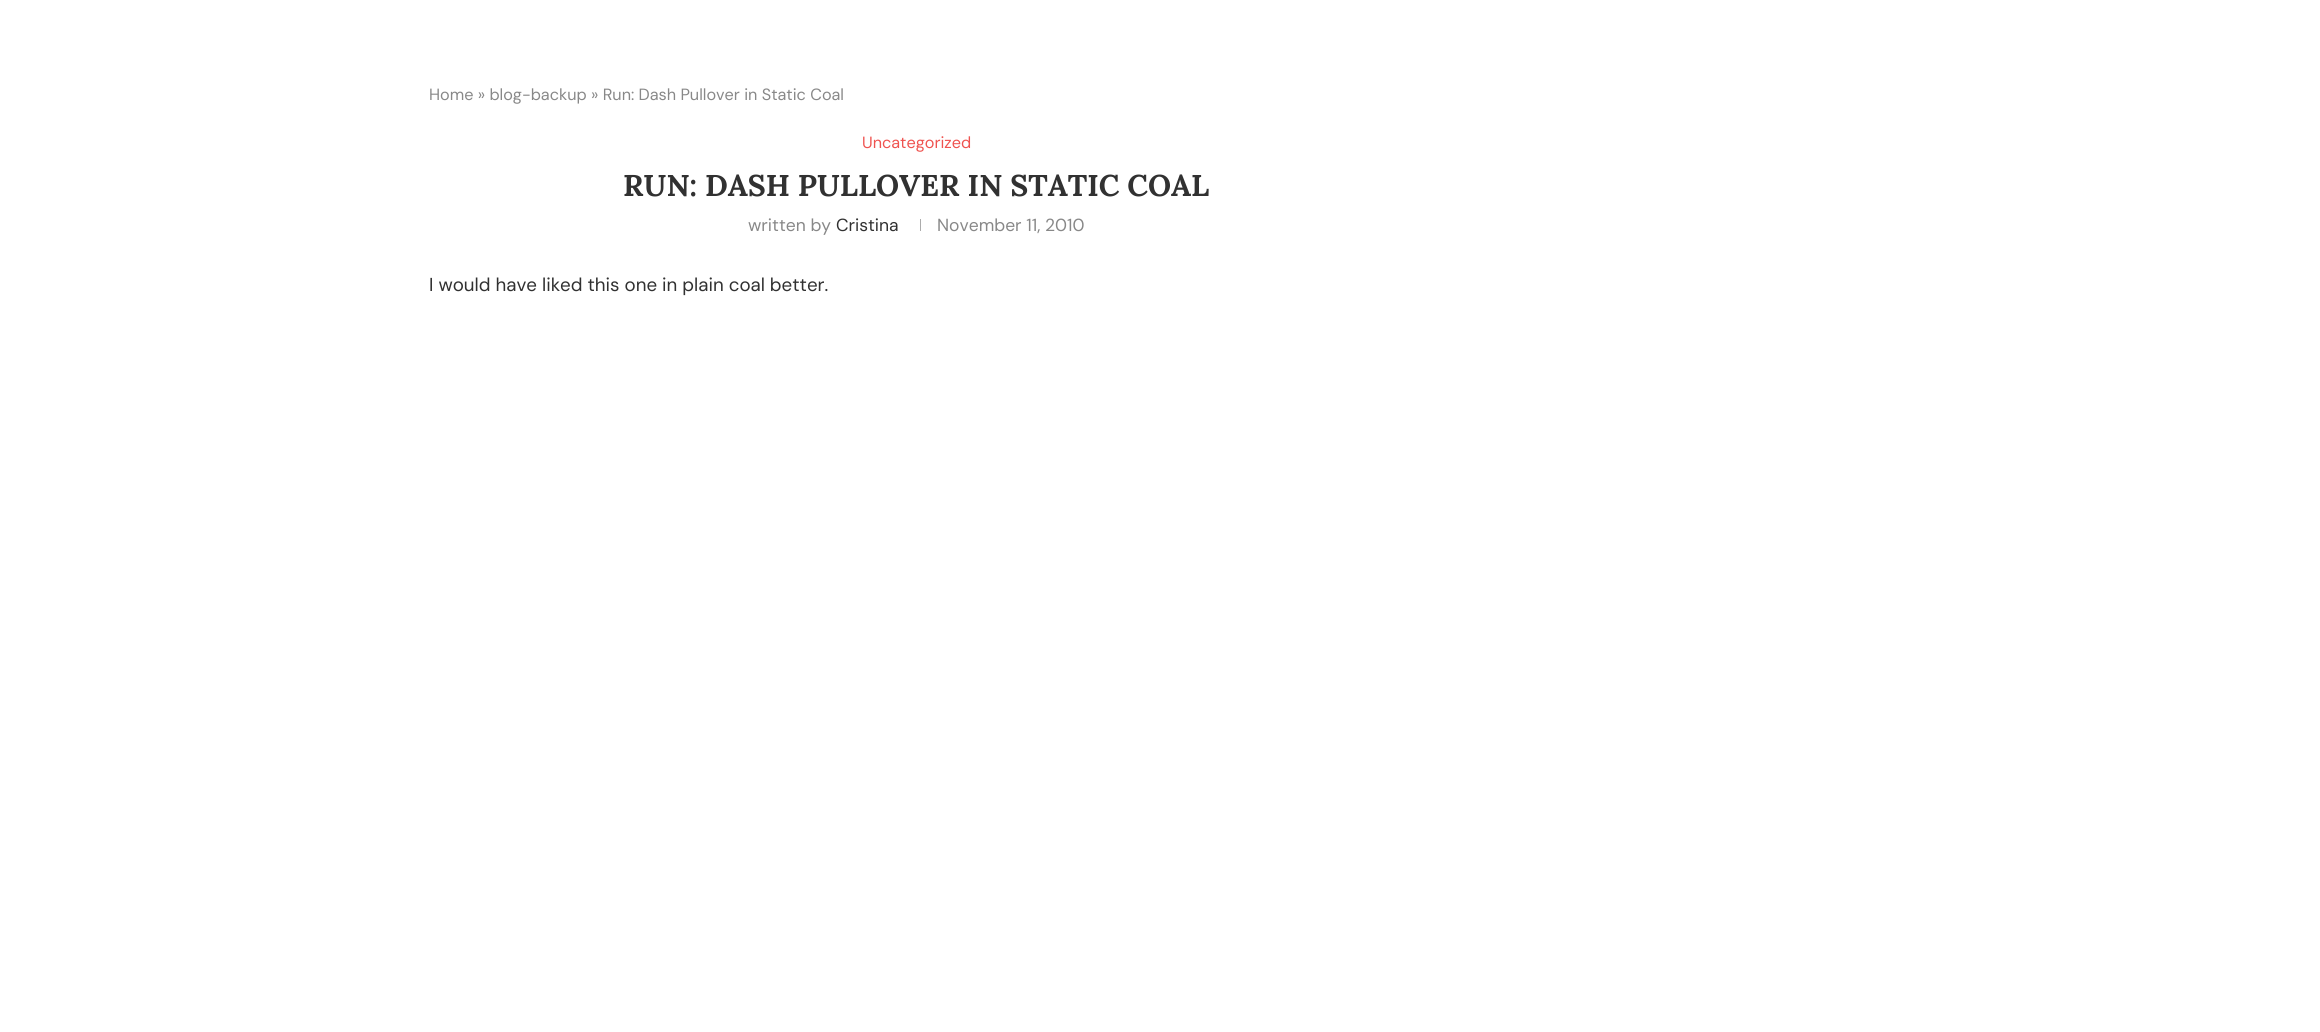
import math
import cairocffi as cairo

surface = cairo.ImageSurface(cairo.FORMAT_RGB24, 2320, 1032)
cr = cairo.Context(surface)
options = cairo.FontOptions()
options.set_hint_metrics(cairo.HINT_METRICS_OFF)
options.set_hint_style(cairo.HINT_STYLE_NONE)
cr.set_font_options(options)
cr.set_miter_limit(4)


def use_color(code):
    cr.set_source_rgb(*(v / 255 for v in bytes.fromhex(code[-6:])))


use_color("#ffffff")
cr.paint()
cr.select_font_face("DM Sans")
cr.set_font_size(16.25)
use_color("#888888")
cr.move_to(429, 100)
cr.show_text("Home » blog-backup » Run: Dash Pullover in Static Coal")
use_color("#ef5350")
cr.move_to(862, 148)
cr.show_text("Uncategorized")
cr.select_font_face("Lora", cairo.FONT_SLANT_NORMAL, cairo.FONT_WEIGHT_BOLD)
cr.set_font_size(30)
use_color("#313131")
cr.move_to(623, 196)
cr.show_text("RUN: DASH PULLOVER IN STATIC COAL")
cr.select_font_face("DM Sans")
cr.set_font_size(17.5)
use_color("#888888")
cr.move_to(748, 231)
cr.show_text("written by")
use_color("#313131")
cr.move_to(836, 231)
cr.show_text("Cristina")
use_color("#acacac")
cr.rectangle(920, 219, 1, 12)
cr.fill()
use_color("#888888")
cr.move_to(937, 231)
cr.show_text("November 11, 2010")
cr.set_font_size(18.75)
use_color("#313131")
cr.move_to(429, 291)
cr.show_text("I would have liked this one in plain coal better.")
surface.write_to_png("result.png")
